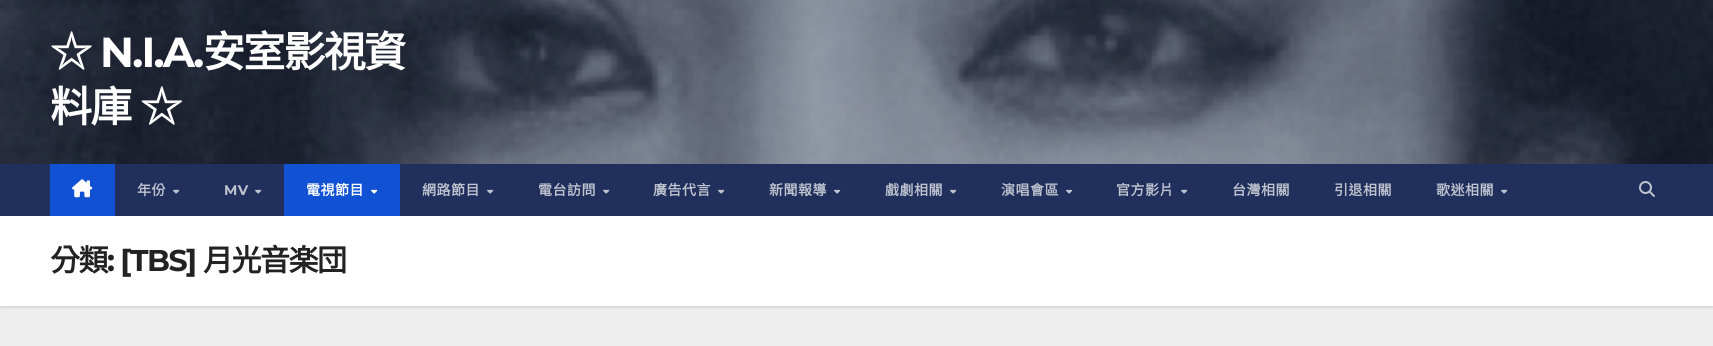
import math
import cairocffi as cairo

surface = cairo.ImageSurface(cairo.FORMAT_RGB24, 1713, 346)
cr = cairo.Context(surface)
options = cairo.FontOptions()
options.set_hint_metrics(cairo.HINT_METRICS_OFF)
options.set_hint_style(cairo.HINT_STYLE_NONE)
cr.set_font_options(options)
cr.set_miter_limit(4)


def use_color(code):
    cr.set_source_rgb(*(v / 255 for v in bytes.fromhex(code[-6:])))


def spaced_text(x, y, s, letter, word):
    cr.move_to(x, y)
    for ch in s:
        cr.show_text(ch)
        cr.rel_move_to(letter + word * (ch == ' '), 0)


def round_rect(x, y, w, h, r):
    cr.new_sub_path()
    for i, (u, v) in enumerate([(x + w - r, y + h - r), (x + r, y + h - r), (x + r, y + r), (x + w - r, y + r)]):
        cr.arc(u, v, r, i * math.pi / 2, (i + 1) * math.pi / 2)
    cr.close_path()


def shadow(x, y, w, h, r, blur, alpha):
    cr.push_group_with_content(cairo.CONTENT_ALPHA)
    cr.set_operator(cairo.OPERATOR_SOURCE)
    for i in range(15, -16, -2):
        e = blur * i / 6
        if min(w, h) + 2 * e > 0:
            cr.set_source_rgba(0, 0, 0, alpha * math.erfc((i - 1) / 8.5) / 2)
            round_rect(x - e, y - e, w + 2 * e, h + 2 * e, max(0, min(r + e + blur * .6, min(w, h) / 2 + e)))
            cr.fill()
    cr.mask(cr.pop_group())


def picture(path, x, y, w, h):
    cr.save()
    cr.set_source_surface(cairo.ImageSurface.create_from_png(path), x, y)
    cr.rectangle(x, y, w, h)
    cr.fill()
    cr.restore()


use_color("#eeeeee")
cr.paint()
picture("img1.png", 0, 0, 1713, 164)
cr.select_font_face("Noto Sans CJK TC", cairo.FONT_SLANT_NORMAL, cairo.FONT_WEIGHT_BOLD)
cr.set_font_size(42)
use_color("#ffffff")
spaced_text(50, 67, "☆", -1.75, 0)
cr.select_font_face("Montserrat", cairo.FONT_SLANT_NORMAL, cairo.FONT_WEIGHT_BOLD)
spaced_text(100, 67, "N.I.A.", -1.75, 0)
cr.select_font_face("Noto Sans CJK TC", cairo.FONT_SLANT_NORMAL, cairo.FONT_WEIGHT_BOLD)
spaced_text(203, 67, "安室影視資", -1.75, 0)
spaced_text(50, 122, "料庫 ☆", -1.75, 2)
use_color("#000000")
shadow(0, 217, 1713, 90, 0, 1.5, 0.15)
use_color("#202f5b")
cr.rectangle(0, 164, 1713, 52)
cr.fill()
use_color("#1151d3")
cr.rectangle(50, 164, 65, 52)
cr.fill()
picture("img2.png", 72, 179, 21, 19)
cr.set_font_size(14)
use_color("#bec3cf")
spaced_text(137, 195, "年份", 0.5, 0)
picture("img3.png", 173, 189, 7, 5)
cr.select_font_face("Montserrat", cairo.FONT_SLANT_NORMAL, cairo.FONT_WEIGHT_BOLD)
spaced_text(224, 195, "MV", 0.5, 0)
picture("img3.png", 255, 189, 7, 5)
use_color("#1151d3")
cr.rectangle(284, 164, 116, 52)
cr.fill()
cr.select_font_face("Noto Sans CJK TC", cairo.FONT_SLANT_NORMAL, cairo.FONT_WEIGHT_BOLD)
use_color("#ffffff")
spaced_text(306, 195, "電視節目", 0.5, 0)
picture("img4.png", 371, 189, 7, 5)
use_color("#bec3cf")
spaced_text(422, 195, "網路節目", 0.5, 0)
picture("img3.png", 487, 189, 7, 5)
spaced_text(538, 195, "電台訪問", 0.5, 0)
picture("img3.png", 603, 189, 7, 5)
spaced_text(653, 195, "廣告代言", 0.5, 0)
picture("img3.png", 718, 189, 7, 5)
spaced_text(769, 195, "新聞報導", 0.5, 0)
picture("img3.png", 834, 189, 7, 5)
spaced_text(885, 195, "戲劇相關", 0.5, 0)
picture("img3.png", 950, 189, 7, 5)
spaced_text(1001, 195, "演唱會區", 0.5, 0)
picture("img3.png", 1066, 189, 7, 5)
spaced_text(1116, 195, "官方影片", 0.5, 0)
picture("img3.png", 1181, 189, 7, 5)
spaced_text(1232, 195, "台灣相關", 0.5, 0)
spaced_text(1334, 195, "引退相關", 0.5, 0)
spaced_text(1436, 195, "歌迷相關", 0.5, 0)
picture("img3.png", 1501, 189, 7, 5)
picture("img5.png", 1639, 181, 16, 16)
use_color("#ffffff")
cr.rectangle(0, 216, 1713, 90)
cr.fill()
cr.set_font_size(30)
use_color("#222222")
spaced_text(50, 271, "分類", -1.5, 0)
cr.select_font_face("Montserrat", cairo.FONT_SLANT_NORMAL, cairo.FONT_WEIGHT_BOLD)
spaced_text(107, 271, ": [TBS]", -1.5, 0)
cr.select_font_face("Noto Sans CJK TC", cairo.FONT_SLANT_NORMAL, cairo.FONT_WEIGHT_BOLD)
spaced_text(203, 271, "月光音楽団", -1.5, 0)
surface.write_to_png("result.png")
